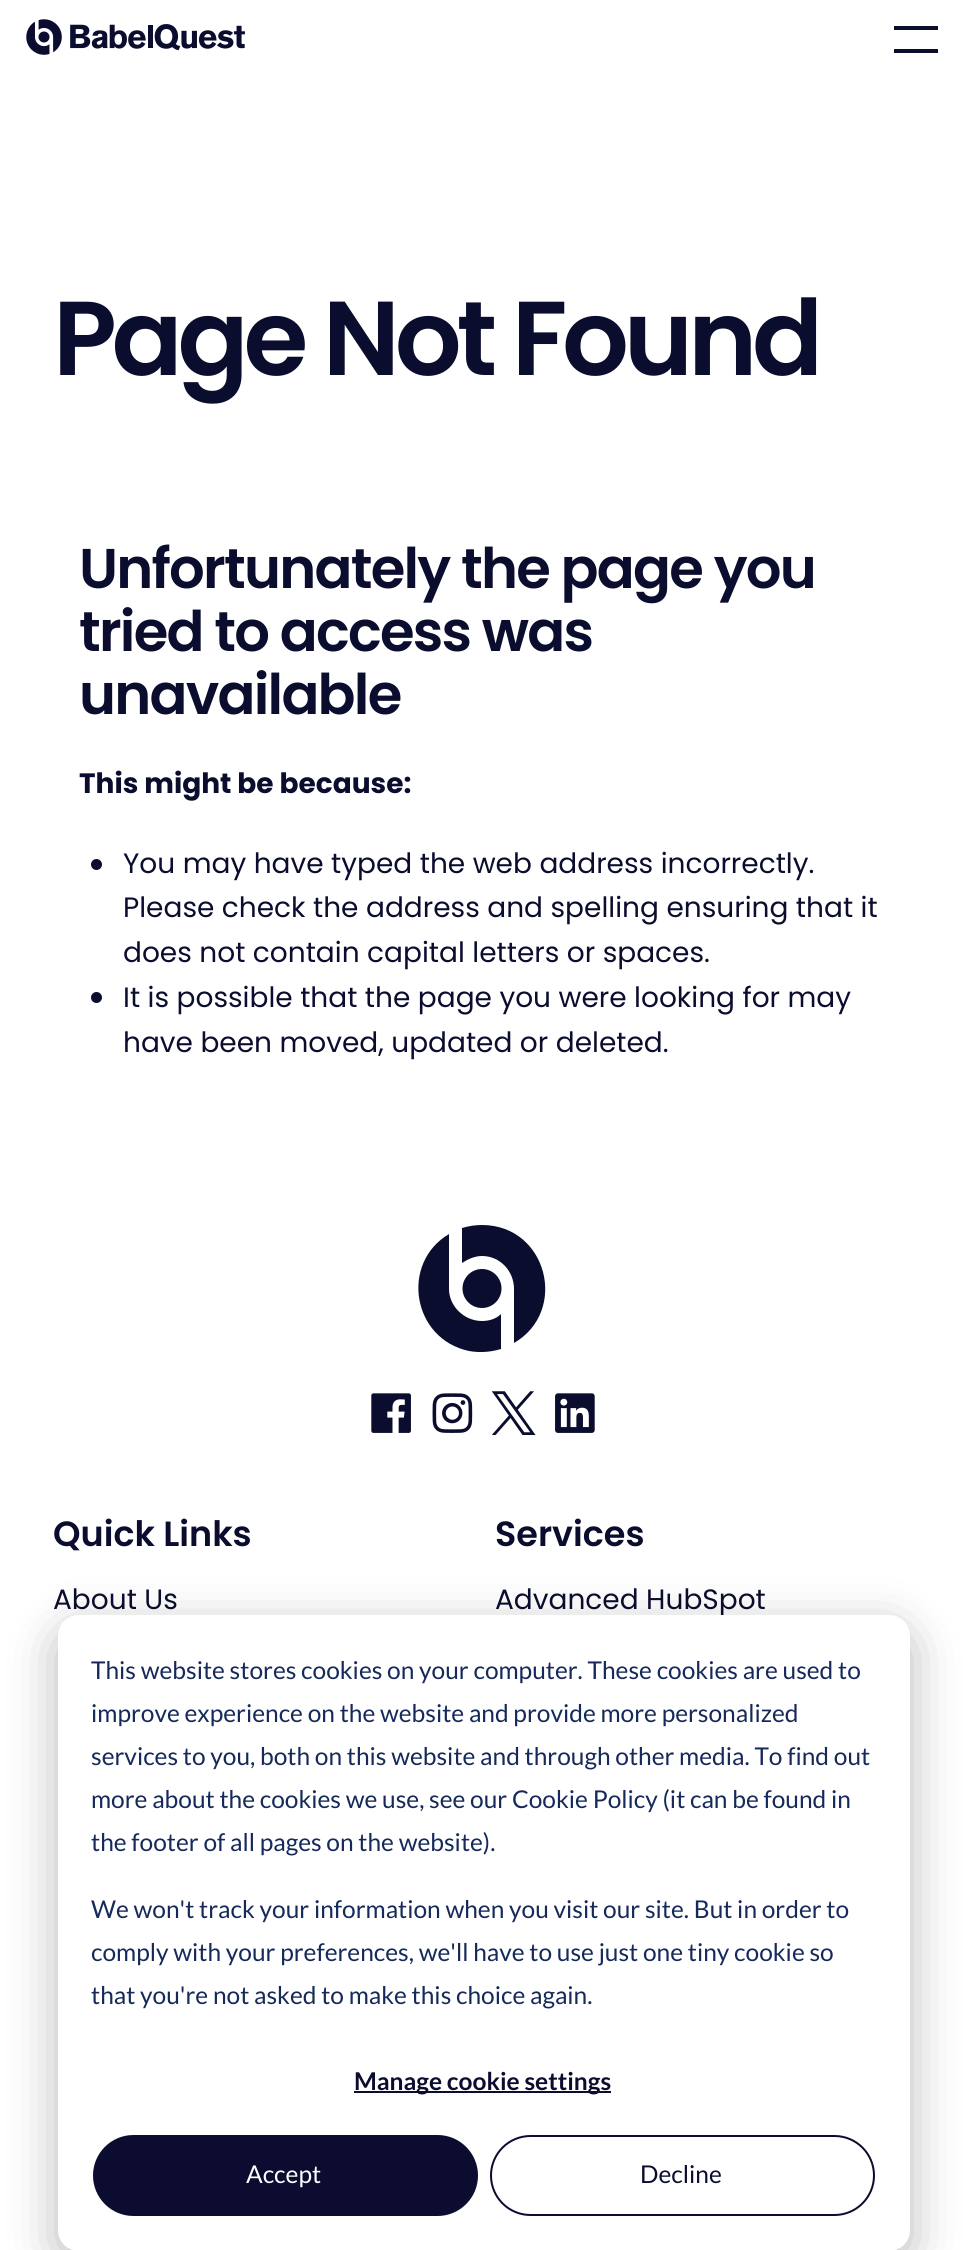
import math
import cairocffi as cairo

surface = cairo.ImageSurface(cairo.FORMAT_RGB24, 963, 2250)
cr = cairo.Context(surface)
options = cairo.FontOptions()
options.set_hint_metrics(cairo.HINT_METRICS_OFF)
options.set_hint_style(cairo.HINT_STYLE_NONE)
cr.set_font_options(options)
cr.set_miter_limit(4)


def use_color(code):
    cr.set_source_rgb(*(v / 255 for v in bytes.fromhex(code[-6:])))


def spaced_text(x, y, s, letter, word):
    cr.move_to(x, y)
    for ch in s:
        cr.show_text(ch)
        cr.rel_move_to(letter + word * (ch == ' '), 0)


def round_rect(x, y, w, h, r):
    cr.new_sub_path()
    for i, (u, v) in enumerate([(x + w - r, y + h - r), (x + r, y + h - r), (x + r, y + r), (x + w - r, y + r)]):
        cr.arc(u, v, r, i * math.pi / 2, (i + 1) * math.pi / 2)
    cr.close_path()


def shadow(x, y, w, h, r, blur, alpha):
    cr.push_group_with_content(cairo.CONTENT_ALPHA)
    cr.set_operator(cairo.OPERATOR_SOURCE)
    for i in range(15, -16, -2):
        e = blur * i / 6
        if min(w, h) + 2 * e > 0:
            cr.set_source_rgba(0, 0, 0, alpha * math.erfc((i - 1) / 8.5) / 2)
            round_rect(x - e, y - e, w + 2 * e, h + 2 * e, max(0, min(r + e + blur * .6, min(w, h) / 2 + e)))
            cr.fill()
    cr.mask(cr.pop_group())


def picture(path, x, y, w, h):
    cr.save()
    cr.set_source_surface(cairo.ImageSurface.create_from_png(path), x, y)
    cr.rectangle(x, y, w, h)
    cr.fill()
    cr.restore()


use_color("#ffffff")
cr.paint()
picture("img1.png", 26, 19, 219, 36)
use_color("#0b0d2f")
cr.rectangle(894, 26, 44, 4)
cr.fill()
cr.rectangle(894, 49, 44, 4)
cr.fill()
cr.select_font_face("Poppins SemiBold")
cr.set_font_size(105)
spaced_text(53, 375, "Page Not Found", -5.25, 0)
cr.set_font_size(56)
spaced_text(79, 588, "Unfortunately the page you", -1.75, 0)
spaced_text(79, 651, "tried to access was", -1.75, 0)
spaced_text(79, 714, "unavailable", -1.75, 0)
cr.select_font_face("Poppins", cairo.FONT_SLANT_NORMAL, cairo.FONT_WEIGHT_BOLD)
cr.set_font_size(28)
cr.move_to(79, 793)
cr.show_text("This might be because:")
cr.new_path()
cr.arc(96.5, 864.5, 5.5, 0, 2 * math.pi)
cr.fill()
cr.select_font_face("Poppins")
cr.move_to(123, 873)
cr.show_text("You may have typed the web address incorrectly.")
cr.move_to(123, 917)
cr.show_text("Please check the address and spelling ensuring that it")
cr.move_to(123, 962)
cr.show_text("does not contain capital letters or spaces.")
cr.new_path()
cr.arc(96.5, 997.5, 5.5, 0, 2 * math.pi)
cr.fill()
cr.move_to(123, 1007)
cr.show_text("It is possible that the page you were looking for may")
cr.move_to(123, 1052)
cr.show_text("have been moved, updated or deleted.")
cr.new_path()
cr.arc(482, 1288.5, 19.5, 0, 2 * math.pi)
cr.fill()
cr.new_path()
cr.move_to(501, 1314)
cr.curve_to(496, 1319, 489, 1321, 482, 1321)
cr.curve_to(464, 1321, 449, 1306, 449, 1289)
cr.line_to(449, 1234)
cr.curve_to(400, 1263, 412, 1339, 469, 1351)
cr.curve_to(480, 1353, 491, 1352, 501, 1349)
cr.close_path()
cr.fill()
cr.new_path()
cr.move_to(482, 1225)
cr.curve_to(475, 1225, 469, 1226, 462, 1228)
cr.line_to(462, 1263)
cr.curve_to(468, 1259, 475, 1256, 482, 1256)
cr.curve_to(500, 1256, 514, 1271, 514, 1289)
cr.line_to(514, 1343)
cr.curve_to(569, 1311, 547, 1225, 482, 1225)
cr.close_path()
cr.fill()
picture("img2.png", 371, 1393, 40, 40)
picture("img3.png", 432, 1393, 41, 40)
picture("img4.png", 492, 1391, 44, 44)
picture("img5.png", 555, 1393, 40, 40)
cr.select_font_face("Poppins SemiBold")
cr.set_font_size(35)
cr.move_to(53, 1546)
cr.show_text("Quick Links")
cr.select_font_face("Poppins")
cr.set_font_size(28)
cr.move_to(53, 1609)
cr.show_text("About Us")
cr.select_font_face("Poppins SemiBold")
cr.set_font_size(35)
cr.move_to(495, 1546)
cr.show_text("Services")
cr.select_font_face("Poppins")
cr.set_font_size(28)
cr.move_to(495, 1609)
cr.show_text("Advanced HubSpot")
use_color("#000000")
shadow(58, 1629, 852, 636, 21, 24.5, 0.28)
use_color("#ffffff")
round_rect(58, 1615, 852, 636, 21)
cr.fill()
cr.select_font_face("Lato")
cr.set_font_size(24.5)
use_color("#15295a")
cr.move_to(91, 1679)
cr.show_text("This website stores cookies on your computer. These cookies are used to")
cr.move_to(91, 1722)
cr.show_text("improve experience on the website and provide more personalized")
cr.move_to(91, 1765)
cr.show_text("services to you, both on this website and through other media. To find out")
cr.move_to(91, 1808)
cr.show_text("more about the cookies we use, see our Cookie Policy (it can be found in")
cr.move_to(91, 1851)
cr.show_text("the footer of all pages on the website).")
cr.move_to(91, 1918)
cr.show_text("We won't track your information when you visit our site. But in order to")
cr.move_to(91, 1961)
cr.show_text("comply with your preferences, we'll have to use just one tiny cookie so")
cr.move_to(91, 2004)
cr.show_text("that you're not asked to make this choice again.")
use_color("#0b0c2f")
cr.rectangle(354, 2091, 257, 2)
cr.fill()
cr.select_font_face("Lato", cairo.FONT_SLANT_NORMAL, cairo.FONT_WEIGHT_BOLD)
use_color("#0b0d2f")
cr.move_to(354, 2090)
cr.show_text("Manage cookie settings")
use_color("#0b0c2f")
round_rect(94, 2136, 383, 79, 39.5)
cr.fill_preserve()
cr.stroke()
cr.select_font_face("Lato")
use_color("#ffffff")
cr.move_to(246, 2183)
cr.show_text("Accept")
round_rect(491, 2136, 383, 79, 39.5)
use_color("#0b0c2f")
cr.stroke()
use_color("#0b0d2f")
cr.move_to(640, 2183)
cr.show_text("Decline")
surface.write_to_png("result.png")
